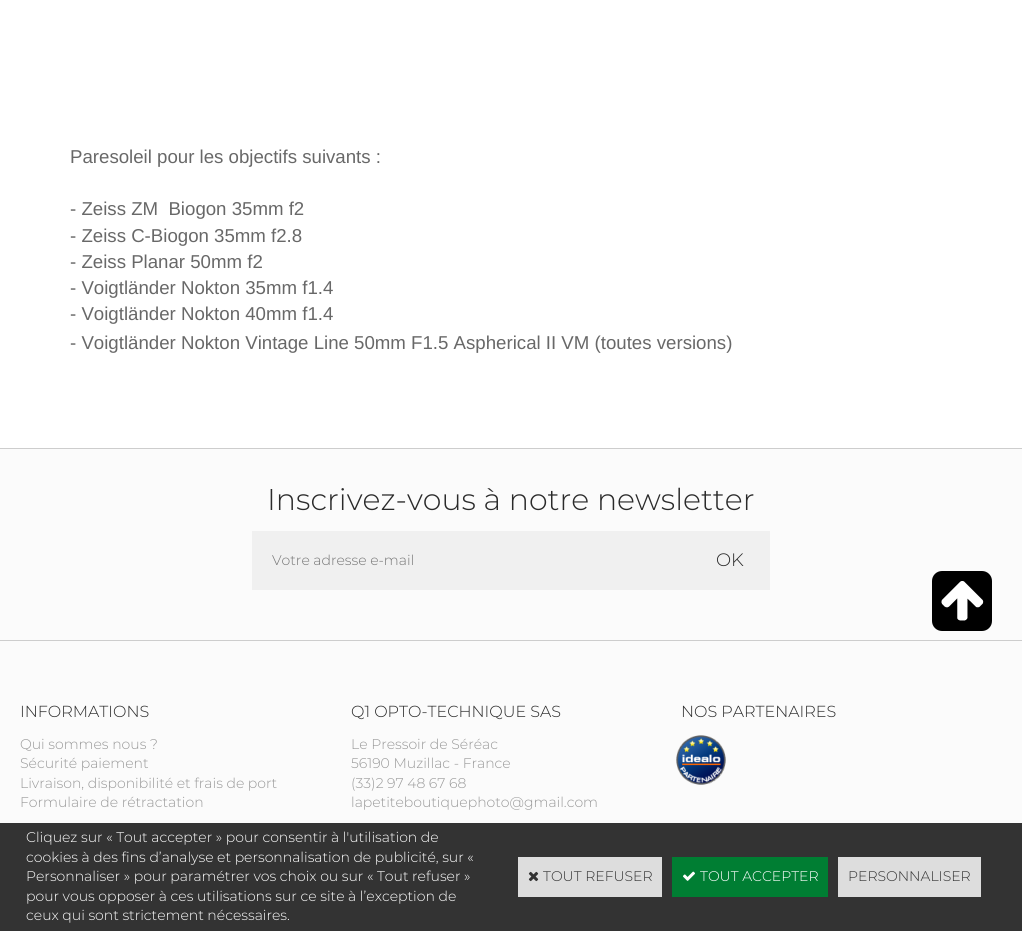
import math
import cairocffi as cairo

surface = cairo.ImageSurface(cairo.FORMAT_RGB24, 1022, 931)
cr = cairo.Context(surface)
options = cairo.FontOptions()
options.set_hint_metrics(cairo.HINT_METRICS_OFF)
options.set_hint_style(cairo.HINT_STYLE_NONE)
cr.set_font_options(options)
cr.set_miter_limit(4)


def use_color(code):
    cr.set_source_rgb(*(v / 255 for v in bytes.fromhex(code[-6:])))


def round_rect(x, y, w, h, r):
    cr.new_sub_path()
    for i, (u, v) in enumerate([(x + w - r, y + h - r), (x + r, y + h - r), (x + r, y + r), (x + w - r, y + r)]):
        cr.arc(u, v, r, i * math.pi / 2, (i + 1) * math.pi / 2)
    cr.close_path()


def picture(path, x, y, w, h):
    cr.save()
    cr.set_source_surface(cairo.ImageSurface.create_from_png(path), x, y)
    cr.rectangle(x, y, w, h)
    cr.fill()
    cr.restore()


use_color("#ffffff")
cr.paint()
cr.select_font_face("Liberation Sans")
cr.set_font_size(18.65)
use_color("#686868")
cr.move_to(70, 163)
cr.show_text("Paresoleil pour les objectifs suivants :")
cr.move_to(70, 215)
cr.show_text("- Zeiss ZM  Biogon 35mm f2")
cr.move_to(70, 242)
cr.show_text("- Zeiss C-Biogon 35mm f2.8")
cr.move_to(70, 268)
cr.show_text("- Zeiss Planar 50mm f2")
cr.move_to(70, 294)
cr.show_text("- Voigtländer Nokton 35mm f1.4")
cr.move_to(70, 320)
cr.show_text("- Voigtländer Nokton 40mm f1.4")
cr.move_to(70, 349)
cr.show_text("- Voigtländer Nokton Vintage Line 50mm F1.5 Aspherical II VM (toutes versions)")
use_color("#fbfbfb")
cr.rectangle(0, 449, 1022, 374)
cr.fill()
use_color("#cdcdcd")
cr.rectangle(0, 448, 1022, 1)
cr.fill()
cr.rectangle(0, 640, 1022, 1)
cr.fill()
cr.select_font_face("Montserrat Thin")
cr.set_font_size(30)
use_color("#2a2a2a")
cr.move_to(267, 510)
cr.show_text("Inscrivez-vous à notre newsletter")
use_color("#f0f0f0")
cr.rectangle(252, 531, 518, 59)
cr.fill()
cr.set_font_size(14)
use_color("#757575")
cr.move_to(272, 565)
cr.show_text("Votre adresse e-mail")
cr.set_font_size(18)
use_color("#2a2a2a")
cr.move_to(716, 566)
cr.show_text("OK")
cr.set_font_size(16)
cr.move_to(20, 717)
cr.show_text("INFORMATIONS")
cr.set_font_size(14)
use_color("#989898")
cr.move_to(20, 749)
cr.show_text("Qui sommes nous ?")
cr.move_to(20, 768)
cr.show_text("Sécurité paiement")
cr.move_to(20, 788)
cr.show_text("Livraison, disponibilité et frais de port")
cr.move_to(20, 807)
cr.show_text("Formulaire de rétractation")
cr.set_font_size(16)
use_color("#2a2a2a")
cr.move_to(351, 717)
cr.show_text("Q1 OPTO-TECHNIQUE SAS")
cr.set_font_size(14)
use_color("#989898")
cr.move_to(351, 749)
cr.show_text("Le Pressoir de Séréac")
cr.move_to(351, 768)
cr.show_text("56190 Muzillac - France")
cr.move_to(351, 788)
cr.show_text("(33)2 97 48 67 68")
cr.move_to(351, 807)
cr.show_text("lapetiteboutiquephoto@gmail.com")
cr.set_font_size(16)
use_color("#2a2a2a")
cr.move_to(681, 717)
cr.show_text("NOS PARTENAIRES")
picture("img1.png", 676, 735, 50, 50)
use_color("#000000")
round_rect(932, 571, 60, 60, 10)
cr.fill()
picture("img2.png", 941, 581, 43, 40)
use_color("#333333")
cr.rectangle(0, 823, 1022, 108)
cr.fill()
cr.set_font_size(14)
use_color("#ffffff")
cr.move_to(26, 842)
cr.show_text("Cliquez sur « Tout accepter » pour consentir à l'utilisation de")
cr.move_to(26, 862)
cr.show_text("cookies à des fins d’analyse et personnalisation de publicité, sur «")
cr.move_to(26, 881)
cr.show_text("Personnaliser » pour paramétrer vos choix ou sur « Tout refuser »")
cr.move_to(26, 901)
cr.show_text("pour vous opposer à ces utilisations sur ce site à l’exception de")
cr.move_to(26, 920)
cr.show_text("ceux qui sont strictement nécessaires.")
use_color("#dddddd")
cr.rectangle(518, 857, 144, 40)
cr.fill()
picture("img3.png", 528, 871, 11, 11)
use_color("#333333")
cr.move_to(543, 881)
cr.show_text("TOUT REFUSER")
use_color("#007e33")
cr.rectangle(672, 857, 156, 40)
cr.fill()
picture("img4.png", 683, 871, 12, 10)
use_color("#ffffff")
cr.move_to(700, 881)
cr.show_text("TOUT ACCEPTER")
use_color("#dddddd")
cr.rectangle(838, 857, 143, 40)
cr.fill()
use_color("#333333")
cr.move_to(848, 881)
cr.show_text("PERSONNALISER")
surface.write_to_png("result.png")
